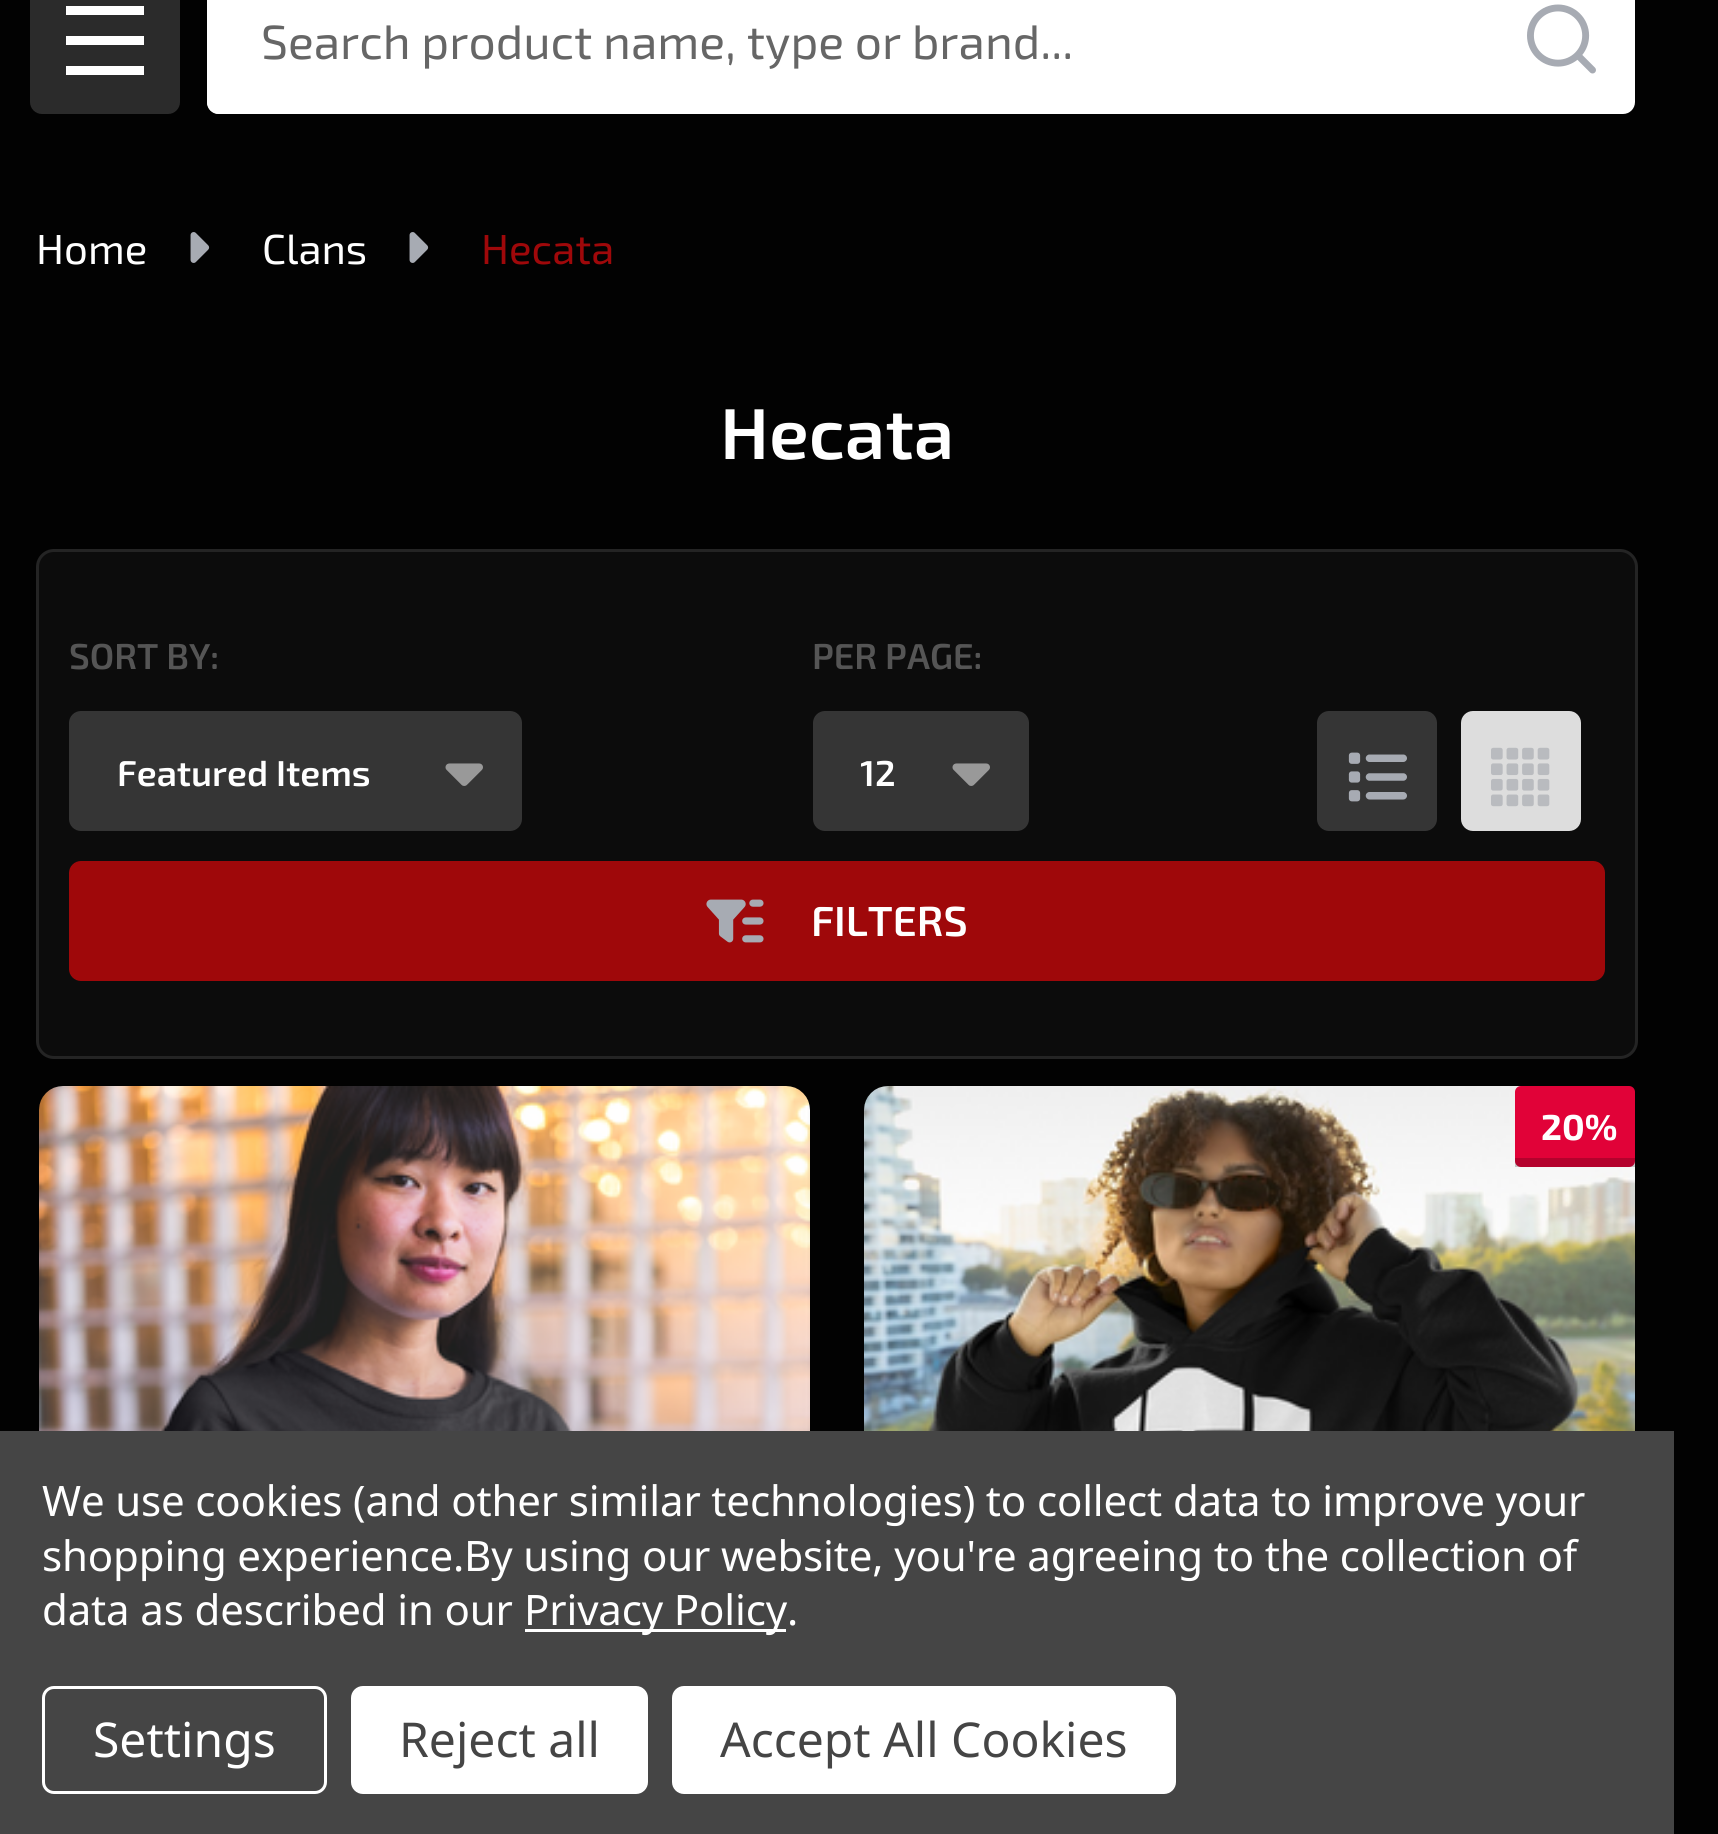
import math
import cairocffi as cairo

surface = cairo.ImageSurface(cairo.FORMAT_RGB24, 1718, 1834)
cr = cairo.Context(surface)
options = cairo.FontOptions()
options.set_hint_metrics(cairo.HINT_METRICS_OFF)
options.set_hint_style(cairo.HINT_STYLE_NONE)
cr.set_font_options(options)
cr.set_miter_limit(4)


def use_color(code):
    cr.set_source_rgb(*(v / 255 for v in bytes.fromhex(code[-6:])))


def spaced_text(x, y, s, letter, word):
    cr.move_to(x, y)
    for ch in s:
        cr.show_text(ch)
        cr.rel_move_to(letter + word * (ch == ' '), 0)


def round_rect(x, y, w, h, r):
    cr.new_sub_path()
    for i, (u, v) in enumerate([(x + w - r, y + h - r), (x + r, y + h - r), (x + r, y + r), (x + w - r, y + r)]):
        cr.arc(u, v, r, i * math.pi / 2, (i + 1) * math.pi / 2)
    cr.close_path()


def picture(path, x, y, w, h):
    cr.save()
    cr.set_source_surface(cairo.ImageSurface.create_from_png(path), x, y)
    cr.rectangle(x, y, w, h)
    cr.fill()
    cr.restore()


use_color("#020202")
cr.paint()
use_color("#2b2b2b")
round_rect(30, -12, 150, 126, 12)
cr.fill()
use_color("#ffffff")
cr.rectangle(66, 36, 78, 9)
cr.fill()
cr.rectangle(66, 6, 78, 9)
cr.fill()
cr.rectangle(66, 66, 78, 9)
cr.fill()
cr.new_path()
cr.move_to(219, -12)
cr.line_to(1485, -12)
cr.line_to(1485, 114)
cr.line_to(219, 114)
cr.curve_to(212.5, 114, 207, 108.5, 207, 102)
cr.line_to(207, 0)
cr.curve_to(207, -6.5, 212.5, -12, 219, -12)
cr.close_path()
cr.fill()
cr.set_fill_rule(cairo.FILL_RULE_EVEN_ODD)
cr.new_path()
cr.move_to(219, -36)
cr.line_to(1485, -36)
cr.line_to(1485, 114)
cr.line_to(219, 114)
cr.curve_to(212, 114, 207, 109, 207, 102)
cr.line_to(207, -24)
cr.curve_to(207, -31, 212, -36, 219, -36)
cr.close_path()
cr.move_to(219, -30)
cr.line_to(1485, -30)
cr.line_to(1485, 108)
cr.line_to(219, 108)
cr.curve_to(216, 108, 213, 105, 213, 102)
cr.line_to(213, -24)
cr.curve_to(213, -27, 216, -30, 219, -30)
cr.close_path()
cr.fill()
cr.select_font_face("Exo 2")
cr.set_font_size(48)
use_color("#666666")
cr.move_to(261, 59)
cr.show_text("Search product name, type or brand...")
use_color("#ffffff")
cr.new_path()
cr.move_to(1488, -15)
cr.line_to(1623, -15)
cr.curve_to(1628, -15, 1632, -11, 1632, -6)
cr.line_to(1632, 102)
cr.curve_to(1632, 107, 1628, 111, 1623, 111)
cr.line_to(1488, 111)
cr.close_path()
cr.fill_preserve()
cr.set_line_width(6)
cr.stroke()
picture("img1.png", 1527, 4, 69, 70)
cr.set_font_size(42)
cr.move_to(36, 264)
cr.show_text("Home")
picture("img2.png", 190, 232, 20, 31)
cr.move_to(262, 264)
cr.show_text("Clans")
picture("img2.png", 409, 232, 20, 31)
use_color("#9f080a")
cr.move_to(481, 264)
cr.show_text("Hecata")
cr.select_font_face("Exo 2 SemiBold")
cr.set_font_size(72)
use_color("#ffffff")
cr.move_to(720, 459)
cr.show_text("Hecata")
use_color("#0c0c0c")
round_rect(36, 549, 1602, 510, 18)
cr.fill()
round_rect(37.5, 550.5, 1599, 507, 16.5)
cr.set_source_rgba(1, 1, 1, 0.1)
cr.set_line_width(3)
cr.stroke()
cr.set_font_size(36)
use_color("#555555")
cr.move_to(69, 669)
cr.show_text("SORT BY:")
use_color("#353535")
round_rect(69, 711, 453, 120, 12)
cr.fill()
picture("img3.png", 445, 763, 38, 23)
use_color("#ffffff")
cr.move_to(117, 786)
cr.show_text("Featured Items")
use_color("#555555")
cr.move_to(812, 669)
cr.show_text("PER PAGE:")
use_color("#353535")
round_rect(813, 711, 216, 120, 12)
cr.fill()
picture("img3.png", 952, 763, 38, 23)
cr.save()
cr.set_fill_rule(cairo.FILL_RULE_WINDING)
cr.rectangle(861, 750, 60, 42)
cr.clip()
use_color("#ffffff")
cr.move_to(860, 786)
cr.show_text("12")
cr.restore()
round_rect(1317, 711, 120, 120, 12)
cr.fill()
picture("img4.png", 1348, 752, 59, 50)
use_color("#dddddd")
round_rect(1461, 711, 120, 120, 12)
cr.fill()
picture("img5.png", 1491, 747, 59, 60)
use_color("#9f080a")
round_rect(72, 864, 1530, 114, 9)
cr.fill_preserve()
cr.set_line_width(6)
cr.stroke()
picture("img6.png", 706, 899, 58, 44)
cr.set_font_size(42)
use_color("#ffffff")
cr.move_to(811, 936)
cr.show_text("FILTERS")
picture("img7.png", 39, 1086, 771, 345)
picture("img8.png", 864, 1086, 771, 345)
use_color("#e10238")
round_rect(1515, 1086, 120, 81, 6)
cr.fill()
cr.select_font_face("Exo 2", cairo.FONT_SLANT_NORMAL, cairo.FONT_WEIGHT_BOLD)
cr.set_font_size(36)
use_color("#ffffff")
cr.move_to(1541, 1140)
cr.show_text("20%")
cr.set_source_rgba(0, 0, 0, 0.2)
cr.rectangle(1515, 1158, 120, 9)
cr.fill()
use_color("#454545")
cr.rectangle(0, 1431, 1674, 403)
cr.fill()
cr.select_font_face("Noto Sans")
cr.set_font_size(42)
use_color("#ffffff")
spaced_text(42, 1516, "We use cookies (and other similar technologies) to collect data to improve your", -0.15, 0)
spaced_text(42, 1571, "shopping experience.By using our website, you're agreeing to the collection of", -0.15, 0)
spaced_text(42, 1625, "data as described in our", -0.15, 0)
cr.rectangle(525, 1629, 261, 3)
cr.fill()
spaced_text(524, 1625, "Privacy Policy.", -0.15, 0)
round_rect(43.5, 1687.5, 282, 105, 10.5)
cr.set_line_width(3)
cr.stroke()
cr.set_font_size(48)
cr.move_to(93, 1757)
cr.show_text("Settings")
round_rect(351, 1686, 297, 108, 12)
cr.fill()
use_color("#454545")
cr.move_to(399, 1757)
cr.show_text("Reject all")
use_color("#ffffff")
round_rect(672, 1686, 504, 108, 12)
cr.fill()
use_color("#454545")
cr.move_to(720, 1757)
cr.show_text("Accept All Cookies")
surface.write_to_png("result.png")
